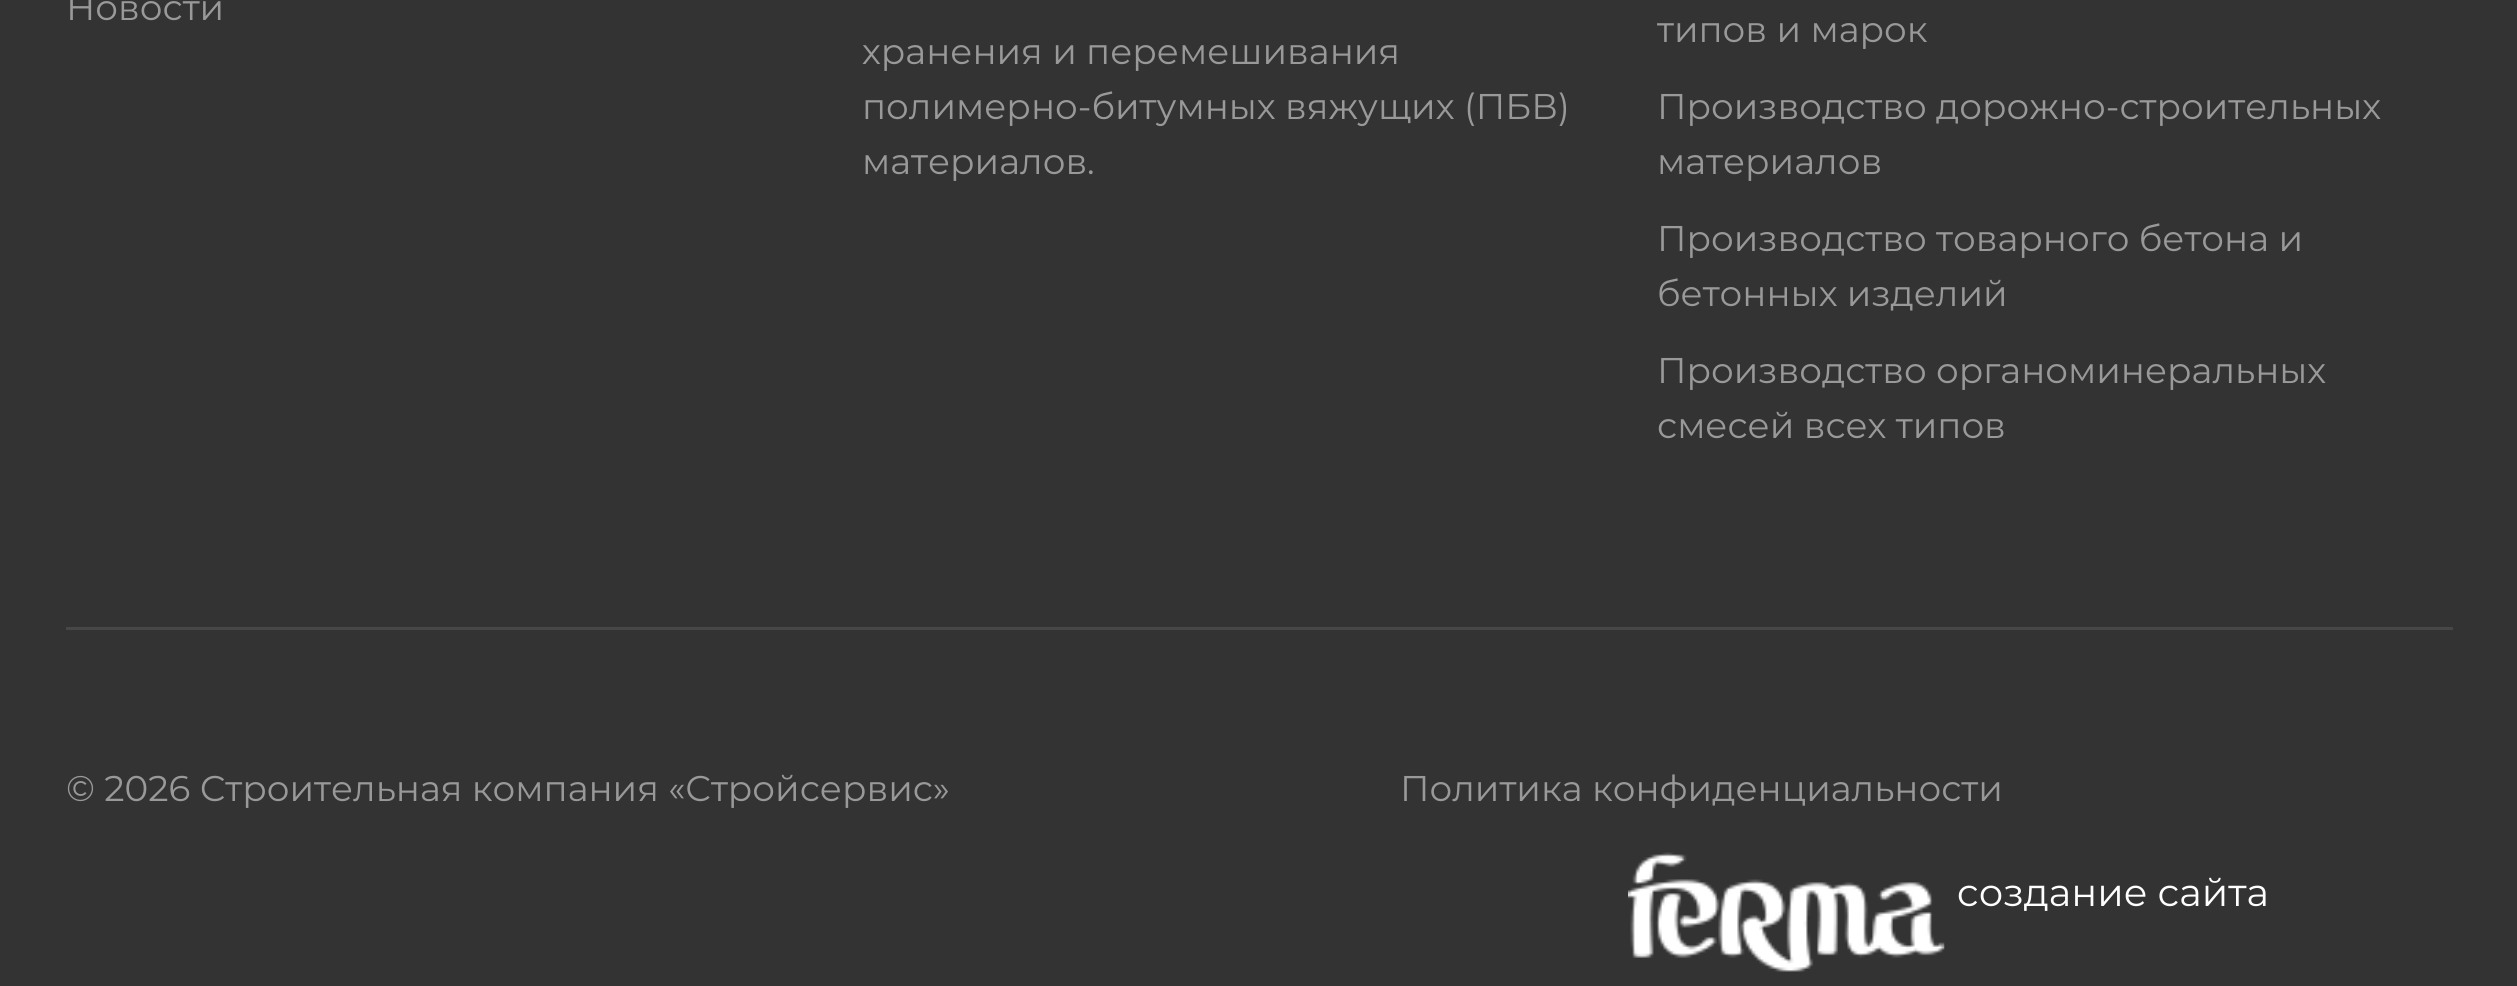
import math
import cairocffi as cairo

surface = cairo.ImageSurface(cairo.FORMAT_RGB24, 2517, 986)
cr = cairo.Context(surface)
options = cairo.FontOptions()
options.set_hint_metrics(cairo.HINT_METRICS_OFF)
options.set_hint_style(cairo.HINT_STYLE_NONE)
cr.set_font_options(options)
cr.set_miter_limit(4)


def use_color(code):
    cr.set_source_rgb(*(v / 255 for v in bytes.fromhex(code[-6:])))


def picture(path, x, y, w, h):
    cr.save()
    cr.set_source_surface(cairo.ImageSurface.create_from_png(path), x, y)
    cr.rectangle(x, y, w, h)
    cr.fill()
    cr.restore()


use_color("#333333")
cr.paint()
cr.select_font_face("Montserrat")
cr.set_font_size(35.75)
use_color("#999999")
cr.move_to(66, 20)
cr.show_text("Новости")
cr.move_to(862, 64)
cr.show_text("хранения и перемешивания")
cr.move_to(862, 119)
cr.show_text("полимерно-битумных вяжущих (ПБВ)")
cr.move_to(862, 174)
cr.show_text("материалов.")
cr.move_to(1657, 42)
cr.show_text("типов и марок")
cr.move_to(1657, 119)
cr.show_text("Производство дорожно-строительных")
cr.move_to(1657, 174)
cr.show_text("материалов")
cr.move_to(1657, 251)
cr.show_text("Производство товарного бетона и")
cr.move_to(1657, 306)
cr.show_text("бетонных изделий")
cr.move_to(1657, 383)
cr.show_text("Производство органоминеральных")
cr.move_to(1657, 438)
cr.show_text("смесей всех типов")
use_color("#474747")
cr.rectangle(66, 627, 2387, 3)
cr.fill()
use_color("#999999")
cr.move_to(66, 801)
cr.show_text("© 2026 Строительная компания «Стройсервис»")
cr.move_to(1400, 801)
cr.show_text("Политика конфиденциальности")
picture("img1.png", 1628, 852, 317, 120)
cr.set_font_size(38.5)
use_color("#ffffff")
cr.move_to(1957, 906)
cr.show_text("cоздание сайта")
surface.write_to_png("result.png")
